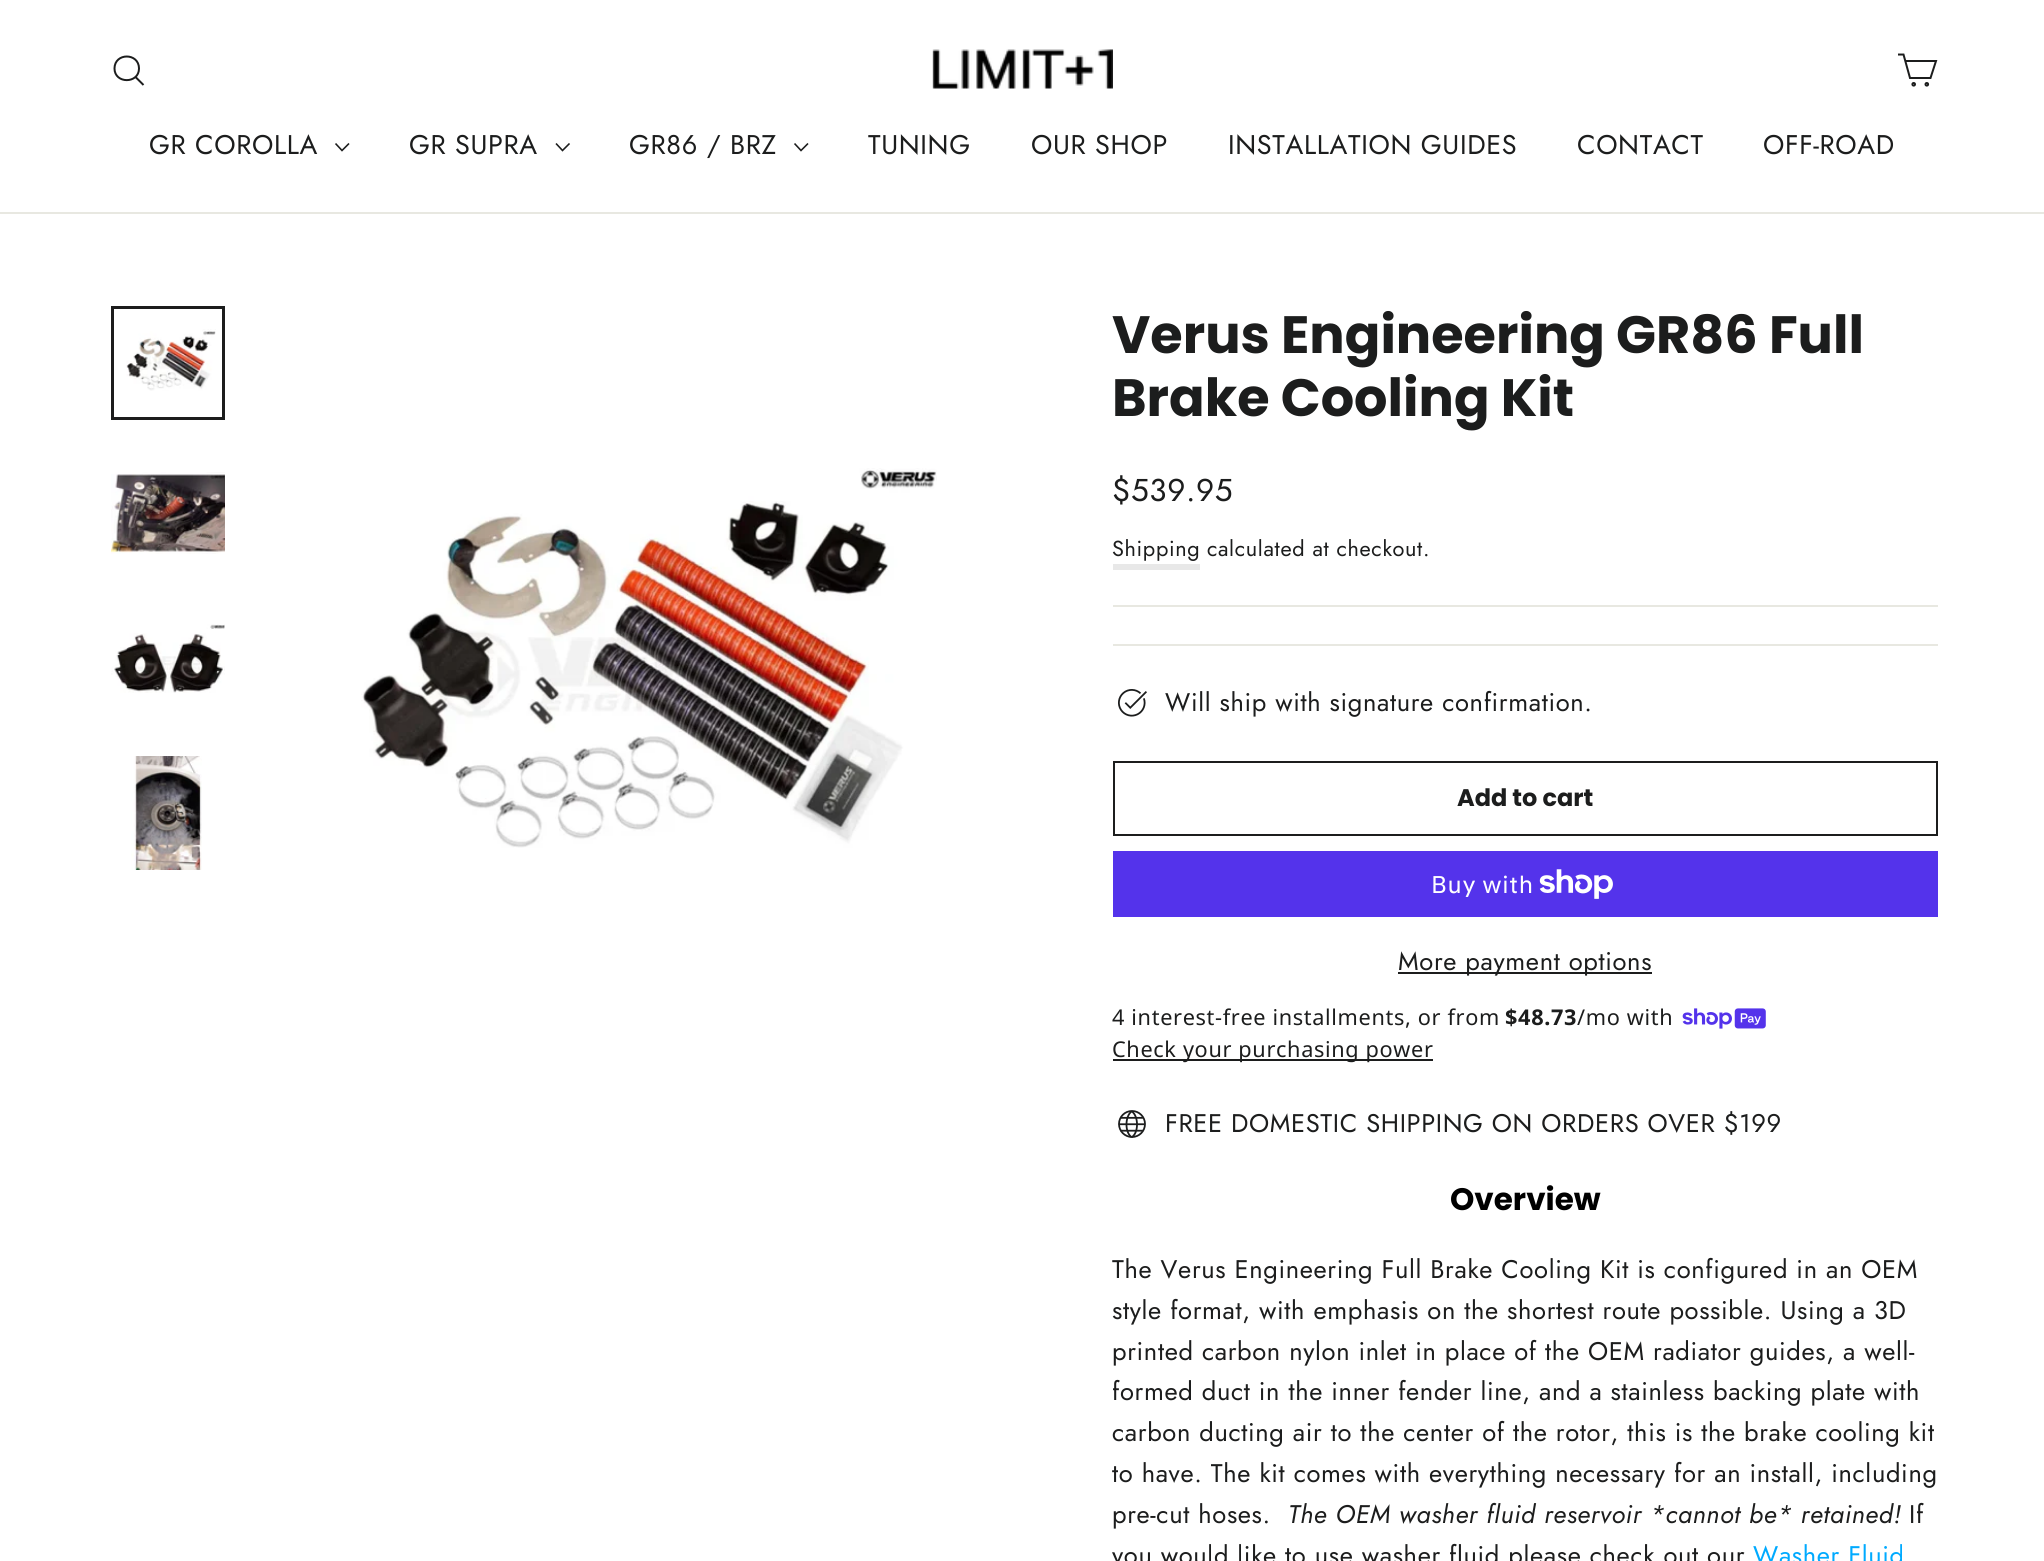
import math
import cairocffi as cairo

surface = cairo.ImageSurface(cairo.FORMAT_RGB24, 2044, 1561)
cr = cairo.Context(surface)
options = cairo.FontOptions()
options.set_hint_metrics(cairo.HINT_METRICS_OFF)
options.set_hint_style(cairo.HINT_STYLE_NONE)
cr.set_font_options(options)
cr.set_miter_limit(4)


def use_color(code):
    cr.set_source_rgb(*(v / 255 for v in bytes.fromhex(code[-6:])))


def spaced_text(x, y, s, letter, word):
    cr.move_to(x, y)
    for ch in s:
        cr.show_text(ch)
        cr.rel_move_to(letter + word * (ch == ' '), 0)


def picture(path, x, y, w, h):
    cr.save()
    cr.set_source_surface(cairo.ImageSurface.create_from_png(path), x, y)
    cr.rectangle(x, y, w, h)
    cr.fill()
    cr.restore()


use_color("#ffffff")
cr.paint()
use_color("#e8e8e1")
cr.rectangle(0, 212, 2044, 2)
cr.fill()
cr.new_path()
cr.move_to(139, 68.5)
cr.curve_to(139, 84, 114.5, 84, 114.5, 68.5)
cr.curve_to(114.5, 52.5, 139, 52.5, 139, 68.5)
cr.close_path()
cr.move_to(143.5, 85)
cr.line_to(135.5, 77)
use_color("#1c1d1d")
cr.stroke()
picture("img1.png", 932, 49, 181, 40)
cr.new_path()
cr.move_to(1905, 61)
cr.line_to(1936, 61)
cr.line_to(1930.5, 78)
cr.line_to(1910, 78)
cr.line_to(1903.5, 54.5)
cr.line_to(1898, 54.5)
cr.stroke()
cr.arc(1913.7, 84.3, 1.3, 0, 2 * math.pi)
cr.stroke()
cr.arc(1926.8, 84.3, 1.3, 0, 2 * math.pi)
cr.stroke()
cr.select_font_face("Jost")
cr.set_font_size(27)
spaced_text(149, 154, "GR COROLLA", 0.65, 0)
cr.new_path()
cr.move_to(335.5, 143.5)
cr.line_to(342, 150.5)
cr.line_to(349, 143.5)
cr.set_line_width(1.6)
cr.stroke()
spaced_text(409, 154, "GR SUPRA", 0.65, 0)
cr.new_path()
cr.move_to(556, 143.5)
cr.line_to(562.5, 150.5)
cr.line_to(569.5, 143.5)
cr.stroke()
spaced_text(629, 154, "GR86 / BRZ", 0.65, 0)
cr.new_path()
cr.move_to(794.5, 143.5)
cr.line_to(801, 150.5)
cr.line_to(808, 143.5)
cr.stroke()
spaced_text(868, 154, "TUNING", 0.65, 0)
spaced_text(1031, 154, "OUR SHOP", 0.65, 0)
spaced_text(1228, 154, "INSTALLATION GUIDES", 0.65, 0)
spaced_text(1577, 154, "CONTACT", 0.65, 0)
spaced_text(1763, 154, "OFF-ROAD", 0.65, 0)
picture("img2.png", 126, 329, 90, 62)
cr.rectangle(112.5, 307.5, 111, 111)
cr.set_line_width(3)
cr.stroke()
picture("img3.png", 111, 472, 114, 82)
picture("img4.png", 111, 624, 114, 69)
picture("img5.png", 131, 756, 71, 114)
picture("img6.png", 361, 468, 576, 380)
cr.select_font_face("Poppins", cairo.FONT_SLANT_NORMAL, cairo.FONT_WEIGHT_BOLD)
cr.set_font_size(52.5)
cr.move_to(1112, 353)
cr.show_text("Verus Engineering GR86 Full")
cr.move_to(1112, 416)
cr.show_text("Brake Cooling Kit")
cr.select_font_face("Jost")
cr.set_font_size(31.5)
spaced_text(1112, 501, "$539.95", 0.65, 0)
cr.set_font_size(21.7)
spaced_text(1112, 556, "Shipping", 0.65, 0)
use_color("#e8e8e8")
cr.rectangle(1113, 564, 87, 6)
cr.fill()
use_color("#1c1d1d")
spaced_text(1207, 556, "calculated at checkout.", 0.65, 0)
use_color("#e8e8e1")
cr.rectangle(1113, 605, 825, 2)
cr.fill()
cr.rectangle(1113, 644, 825, 2)
cr.fill()
picture("img7.png", 1118, 689, 29, 28)
cr.set_font_size(25.5)
use_color("#1c1d1d")
spaced_text(1165, 711, "Will ship with signature confirmation.", 0.65, 0)
cr.rectangle(1114, 762, 823, 73)
cr.set_line_width(2)
cr.stroke()
cr.select_font_face("Poppins", cairo.FONT_SLANT_NORMAL, cairo.FONT_WEIGHT_BOLD)
cr.set_font_size(24)
cr.move_to(1457, 806)
cr.show_text("Add to cart")
use_color("#5433eb")
cr.rectangle(1113, 851, 825, 66)
cr.fill()
cr.select_font_face("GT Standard")
use_color("#ffffff")
spaced_text(1431, 893, "Buy with", 0.65, 0)
picture("img8.png", 1539, 869, 74, 30)
use_color("#1c1d1d")
cr.rectangle(1398, 972, 254, 2)
cr.fill()
cr.select_font_face("Jost")
cr.set_font_size(25.5)
spaced_text(1398, 970, "More payment options", 0.65, 0)
cr.select_font_face("Noto Sans")
cr.set_font_size(21.7)
spaced_text(1112, 1025, "4 interest-free installments, or from", 0.65, 0)
cr.select_font_face("Noto Sans", cairo.FONT_SLANT_NORMAL, cairo.FONT_WEIGHT_BOLD)
spaced_text(1505, 1025, "$48.73", 0.65, 0)
cr.select_font_face("Noto Sans")
spaced_text(1577, 1025, "/mo with", 0.65, 0)
picture("img9.png", 1682, 1008, 84, 21)
cr.rectangle(1113, 1059, 320, 2)
cr.fill()
spaced_text(1112, 1057, "Check your purchasing power", 0.65, 0)
picture("img10.png", 1118, 1110, 28, 28)
cr.select_font_face("Jost")
cr.set_font_size(25.5)
spaced_text(1165, 1132, "FREE DOMESTIC SHIPPING ON ORDERS OVER $199", 0.65, 0)
cr.select_font_face("Poppins", cairo.FONT_SLANT_NORMAL, cairo.FONT_WEIGHT_BOLD)
cr.set_font_size(31)
use_color("#000000")
cr.move_to(1450, 1210)
cr.show_text("Overview")
cr.select_font_face("Jost")
cr.set_font_size(25.5)
use_color("#1c1d1d")
spaced_text(1112, 1278, "The Verus Engineering Full Brake Cooling Kit is configured in an OEM", 0.65, 0)
spaced_text(1112, 1319, "style format, with emphasis on the shortest route possible. Using a 3D", 0.65, 0)
spaced_text(1112, 1360, "printed carbon nylon inlet in place of the OEM radiator guides, a well-", 0.65, 0)
spaced_text(1112, 1400, "formed duct in the inner fender line, and a stainless backing plate with", 0.65, 0)
spaced_text(1112, 1441, "carbon ducting air to the center of the rotor, this is the brake cooling kit", 0.65, 0)
spaced_text(1112, 1482, "to have. The kit comes with everything necessary for an install, including", 0.65, 0)
spaced_text(1112, 1523, "pre-cut hoses.", 0.65, 0)
cr.select_font_face("Jost", cairo.FONT_SLANT_ITALIC)
spaced_text(1288, 1523, "The OEM washer fluid reservoir *cannot be* retained!", 0.65, 0)
cr.select_font_face("Jost")
spaced_text(1909, 1523, "If", 0.65, 0)
spaced_text(1112, 1564, "you would like to use washer fluid please check out our", 0.65, 0)
use_color("#00aaff")
spaced_text(1753, 1564, "Washer Fluid", 0.65, 0)
surface.write_to_png("result.png")
